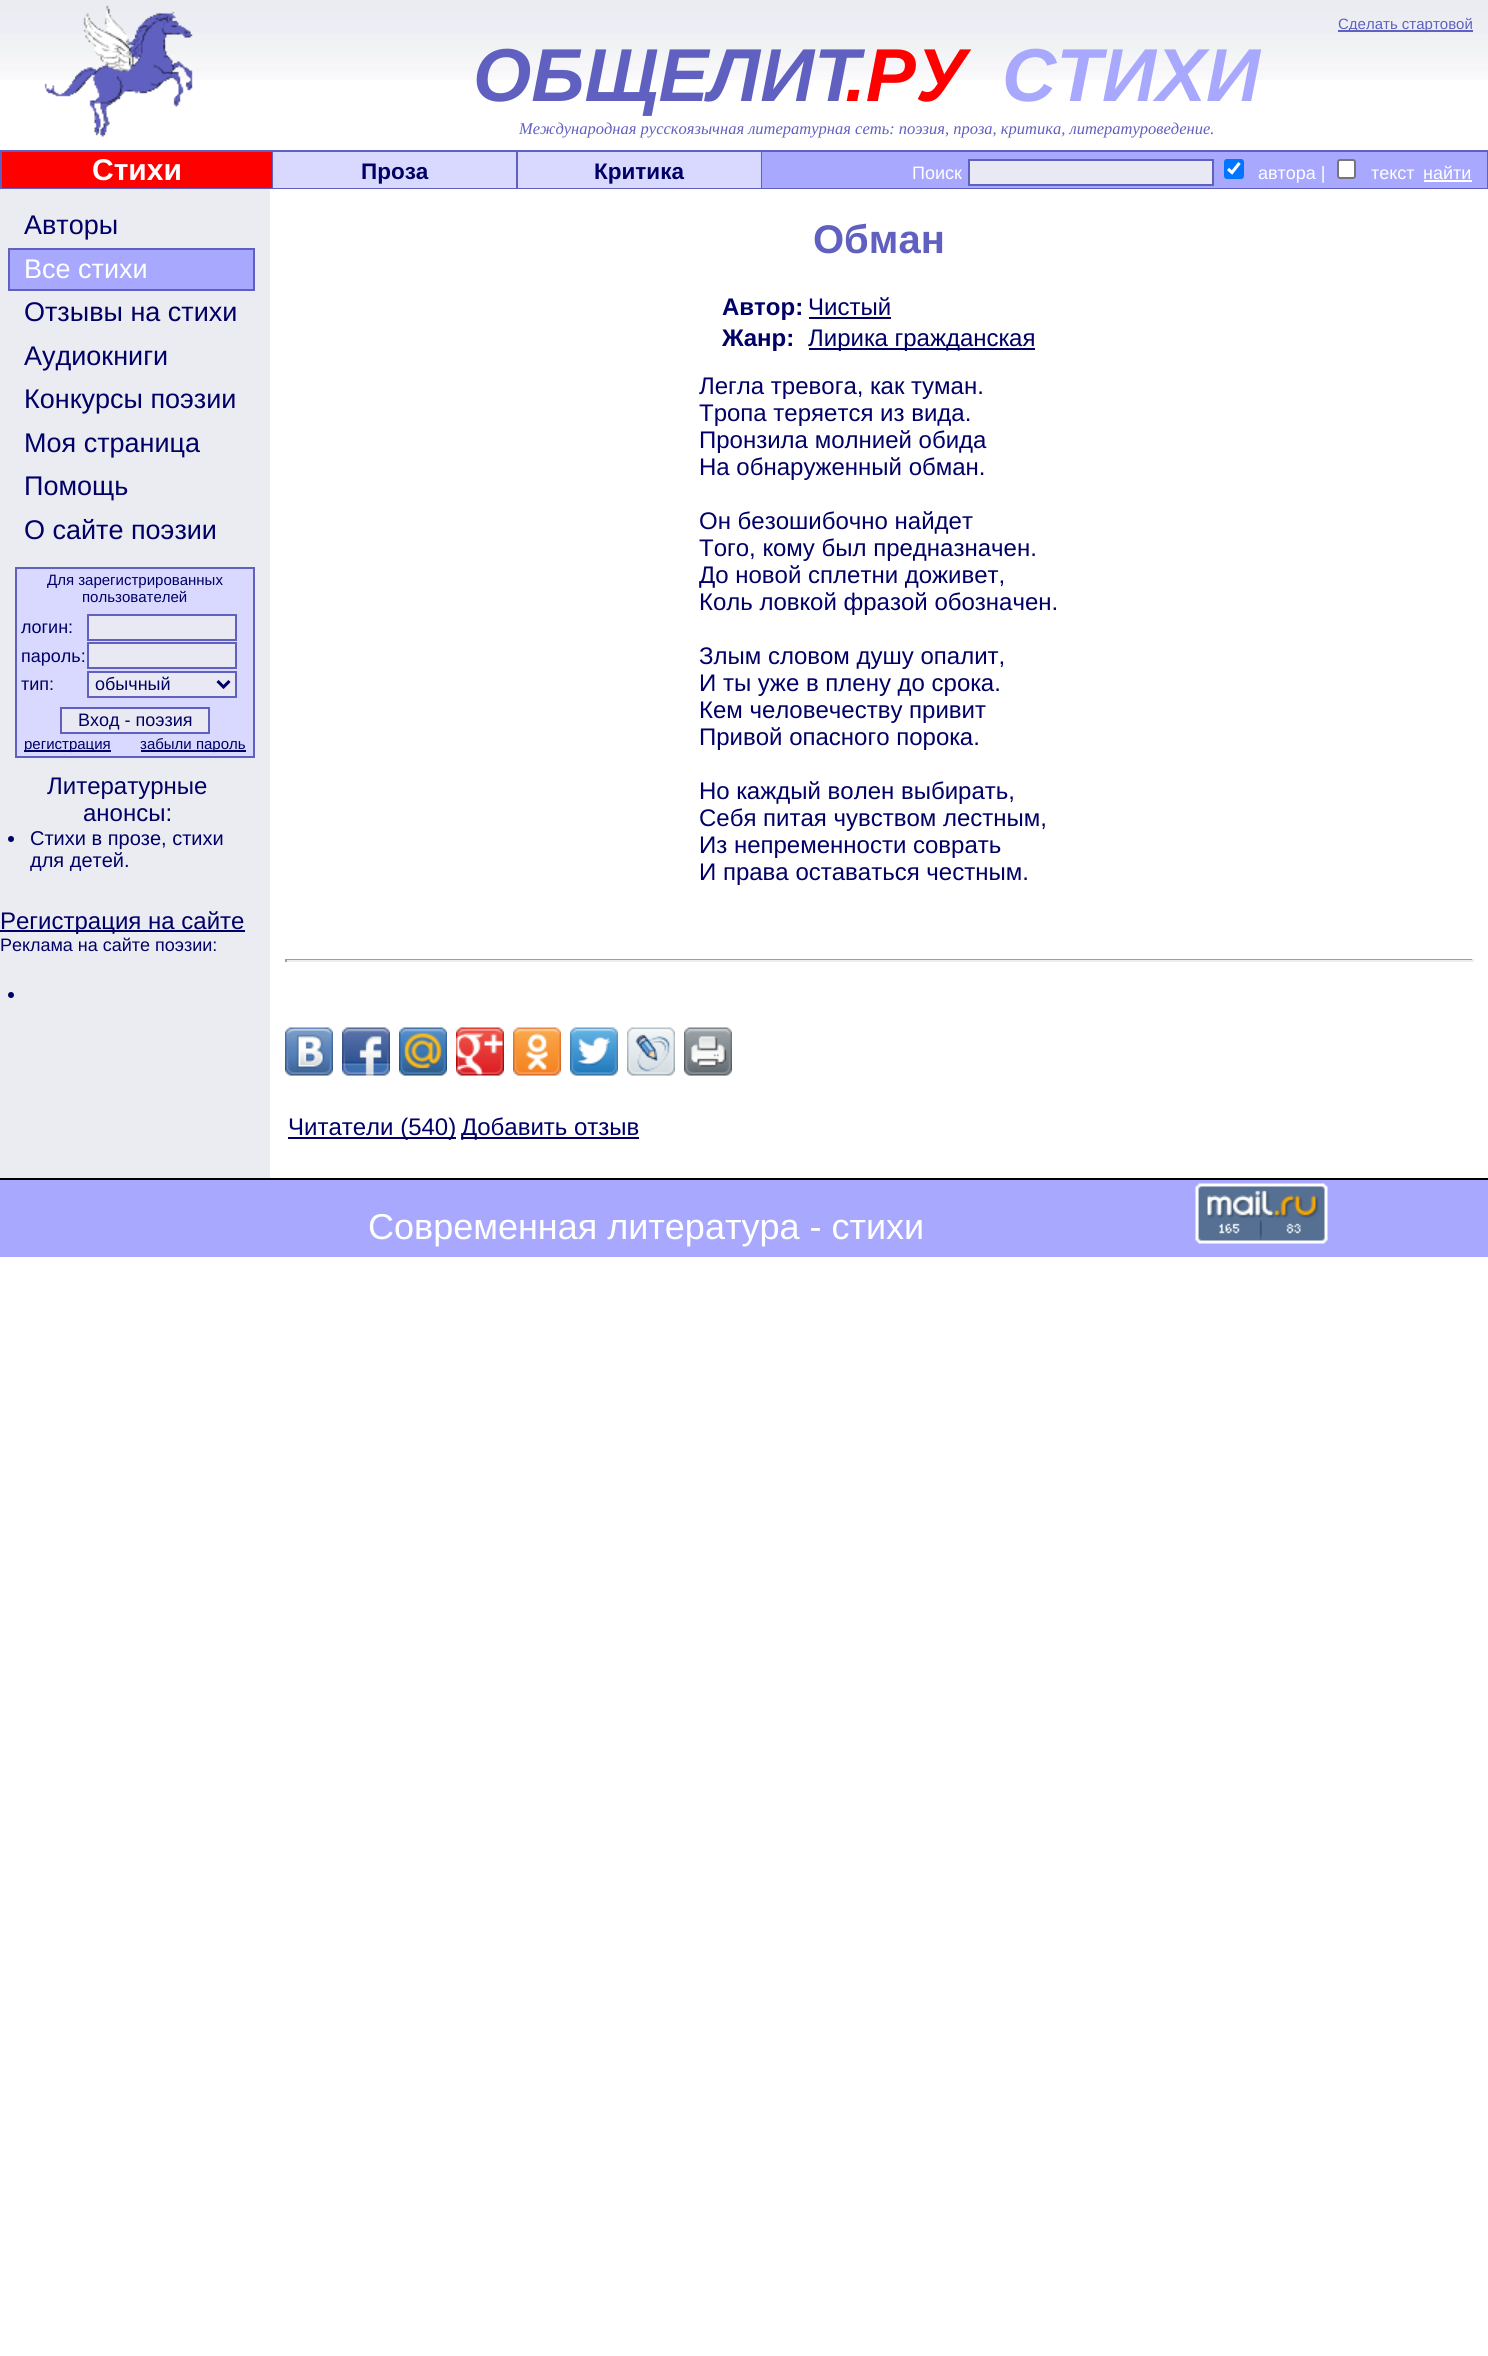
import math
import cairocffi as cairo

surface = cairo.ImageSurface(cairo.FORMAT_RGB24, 1488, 2356)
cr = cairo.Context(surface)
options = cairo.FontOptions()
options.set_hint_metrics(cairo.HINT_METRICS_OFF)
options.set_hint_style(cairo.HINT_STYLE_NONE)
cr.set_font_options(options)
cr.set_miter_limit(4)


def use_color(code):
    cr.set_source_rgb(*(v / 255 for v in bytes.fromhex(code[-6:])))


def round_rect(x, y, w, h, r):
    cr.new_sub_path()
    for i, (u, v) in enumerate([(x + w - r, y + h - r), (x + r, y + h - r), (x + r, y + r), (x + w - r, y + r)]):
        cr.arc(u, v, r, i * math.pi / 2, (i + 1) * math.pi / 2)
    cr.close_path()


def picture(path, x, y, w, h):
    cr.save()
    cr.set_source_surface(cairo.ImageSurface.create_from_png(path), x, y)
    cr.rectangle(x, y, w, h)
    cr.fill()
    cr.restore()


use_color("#ffffff")
cr.paint()
picture("img1.png", 0, 0, 1488, 80)
picture("img2.png", 44, 5, 149, 132)
use_color("#6060c0")
cr.rectangle(1338, 30, 135, 2)
cr.fill()
cr.select_font_face("Liberation Sans")
cr.set_font_size(15)
cr.move_to(1338, 29)
cr.show_text("Сделать стартовой")
cr.select_font_face("Liberation Sans", cairo.FONT_SLANT_ITALIC, cairo.FONT_WEIGHT_BOLD)
cr.set_font_size(75)
cr.move_to(473, 101)
cr.show_text("ОБЩЕЛИТ")
use_color("#ff0000")
cr.move_to(845, 101)
cr.show_text(".РУ")
use_color("#a8a8ff")
cr.move_to(1002, 101)
cr.show_text("СТИХИ")
cr.select_font_face("Liberation Serif", cairo.FONT_SLANT_ITALIC)
cr.set_font_size(16.5)
use_color("#6060c0")
cr.move_to(519, 134)
cr.show_text("Международная русскоязычная литературная сеть: поэзия, проза, критика, литературоведение.")
cr.rectangle(0, 150, 1488, 39)
cr.fill()
use_color("#ff0000")
cr.rectangle(2, 152, 270, 36)
cr.fill()
cr.select_font_face("Liberation Sans", cairo.FONT_SLANT_NORMAL, cairo.FONT_WEIGHT_BOLD)
cr.set_font_size(30)
use_color("#ffffff")
cr.move_to(92, 180)
cr.show_text("Стихи")
use_color("#d9d9ff")
cr.rectangle(273, 152, 243, 36)
cr.fill()
cr.set_font_size(22.5)
use_color("#000066")
cr.move_to(361, 179)
cr.show_text("Проза")
use_color("#d9d9ff")
cr.rectangle(518, 152, 243, 36)
cr.fill()
use_color("#000066")
cr.move_to(594, 179)
cr.show_text("Критика")
use_color("#a8a8ff")
cr.rectangle(762, 152, 725, 36)
cr.fill()
cr.select_font_face("Liberation Sans")
cr.set_font_size(18)
use_color("#ffffff")
cr.move_to(912, 179)
cr.show_text("Поиск")
use_color("#e9e9f3")
cr.rectangle(969, 160, 244, 25)
cr.fill_preserve()
use_color("#6060c0")
cr.stroke()
use_color("#0075ff")
round_rect(1224, 159, 20, 20, 3)
cr.fill()
cr.new_path()
cr.move_to(1228, 169)
cr.line_to(1232, 172.5)
cr.line_to(1239.5, 163)
use_color("#ffffff")
cr.set_line_width(3.1)
cr.stroke()
cr.move_to(1258, 179)
cr.show_text("автора |")
round_rect(1338, 160, 17, 18, 2)
cr.fill_preserve()
use_color("#767676")
cr.set_line_width(2)
cr.stroke()
use_color("#ffffff")
cr.move_to(1371, 179)
cr.show_text("текст")
cr.move_to(1423, 179)
cr.show_text("найти")
cr.rectangle(1424, 180, 48, 2)
cr.fill()
use_color("#ebecf1")
cr.rectangle(0, 189, 270, 989)
cr.fill()
cr.set_font_size(27)
use_color("#000066")
cr.move_to(24, 234)
cr.show_text("Авторы")
use_color("#a8a8ff")
cr.rectangle(9, 249, 245, 41)
cr.fill_preserve()
use_color("#6060c0")
cr.stroke()
use_color("#ffffff")
cr.move_to(24, 278)
cr.show_text("Все стихи")
use_color("#000066")
cr.move_to(24, 321)
cr.show_text("Отзывы на стихи")
cr.move_to(24, 365)
cr.show_text("Аудиокниги")
cr.move_to(24, 408)
cr.show_text("Конкурсы поэзии")
cr.move_to(24, 452)
cr.show_text("Моя страница")
cr.move_to(24, 495)
cr.show_text("Помощь")
cr.move_to(24, 539)
cr.show_text("О сайте поэзии")
use_color("#d9d9ff")
cr.rectangle(16, 568, 238, 189)
cr.fill_preserve()
use_color("#6060c0")
cr.stroke()
cr.set_font_size(15)
use_color("#000066")
cr.move_to(47, 585)
cr.show_text("Для зарегистрированных")
cr.move_to(82, 602)
cr.show_text("пользователей")
cr.set_font_size(18)
cr.move_to(21, 633)
cr.show_text("логин:")
use_color("#e9e9f3")
cr.rectangle(88, 615, 148, 25)
cr.fill_preserve()
use_color("#6060c0")
cr.stroke()
use_color("#000066")
cr.move_to(21, 662)
cr.show_text("пароль:")
use_color("#e9e9f3")
cr.rectangle(88, 643, 148, 25)
cr.fill_preserve()
use_color("#6060c0")
cr.stroke()
use_color("#000066")
cr.move_to(21, 690)
cr.show_text("тип:")
use_color("#e9e9f3")
cr.rectangle(88, 672, 148, 25)
cr.fill_preserve()
use_color("#6060c0")
cr.stroke()
cr.new_path()
cr.move_to(217.5, 681)
cr.line_to(223.5, 687)
cr.line_to(229.5, 681)
use_color("#000066")
cr.set_line_width(3)
cr.stroke()
cr.move_to(95, 690)
cr.show_text("обычный")
use_color("#e9e9f3")
cr.rectangle(61, 708, 148, 25)
cr.fill_preserve()
use_color("#6060c0")
cr.set_line_width(2)
cr.stroke()
use_color("#000066")
cr.move_to(78, 726)
cr.show_text("Вход - поэзия")
cr.rectangle(24, 750, 87, 2)
cr.fill()
cr.set_font_size(15)
cr.move_to(24, 749)
cr.show_text("регистрация")
cr.rectangle(141, 750, 105, 2)
cr.fill()
cr.move_to(140, 749)
cr.show_text("забыли пароль")
cr.set_font_size(24)
cr.move_to(47, 794)
cr.show_text("Литературные")
cr.move_to(83, 821)
cr.show_text("анонсы:")
cr.new_path()
cr.arc(11, 839, 3, 0, 2 * math.pi)
cr.fill()
cr.set_font_size(20)
cr.move_to(30, 845)
cr.show_text("Стихи в прозе, стихи")
cr.move_to(30, 867)
cr.show_text("для детей.")
cr.rectangle(0, 930, 245, 2)
cr.fill()
cr.set_font_size(24)
cr.move_to(0, 929)
cr.show_text("Регистрация на сайте")
cr.set_font_size(18)
cr.move_to(0, 951)
cr.show_text("Реклама на сайте поэзии:")
cr.new_path()
cr.arc(11, 995, 3, 0, 2 * math.pi)
cr.fill()
cr.select_font_face("Liberation Sans", cairo.FONT_SLANT_NORMAL, cairo.FONT_WEIGHT_BOLD)
cr.set_font_size(40)
use_color("#6060c0")
cr.move_to(813, 253)
cr.show_text("Обман")
cr.set_font_size(24)
use_color("#000066")
cr.move_to(722, 315)
cr.show_text("Автор:")
cr.select_font_face("Liberation Sans")
cr.move_to(808, 315)
cr.show_text("Чистый")
cr.rectangle(809, 317, 82, 2)
cr.fill()
cr.select_font_face("Liberation Sans", cairo.FONT_SLANT_NORMAL, cairo.FONT_WEIGHT_BOLD)
cr.move_to(722, 346)
cr.show_text("Жанр:")
cr.rectangle(809, 348, 226, 2)
cr.fill()
cr.select_font_face("Liberation Sans")
cr.move_to(808, 346)
cr.show_text("Лирика гражданская")
cr.move_to(699, 394)
cr.show_text("Легла тревога, как туман.")
cr.move_to(699, 421)
cr.show_text("Тропа теряется из вида.")
cr.move_to(699, 448)
cr.show_text("Пронзила молнией обида")
cr.move_to(699, 475)
cr.show_text("На обнаруженный обман.")
cr.move_to(699, 529)
cr.show_text("Он безошибочно найдет")
cr.move_to(699, 556)
cr.show_text("Того, кому был предназначен.")
cr.move_to(699, 583)
cr.show_text("До новой сплетни доживет,")
cr.move_to(699, 610)
cr.show_text("Коль ловкой фразой обозначен.")
cr.move_to(699, 664)
cr.show_text("Злым словом душу опалит,")
cr.move_to(699, 691)
cr.show_text("И ты уже в плену до срока.")
cr.move_to(699, 718)
cr.show_text("Кем человечеству привит")
cr.move_to(699, 745)
cr.show_text("Привой опасного порока.")
cr.move_to(699, 799)
cr.show_text("Но каждый волен выбирать,")
cr.move_to(699, 826)
cr.show_text("Себя питая чувством лестным,")
cr.move_to(699, 853)
cr.show_text("Из непременности соврать")
cr.move_to(699, 880)
cr.show_text("И права оставаться честным.")
use_color("#9f9f9f")
cr.rectangle(285, 959, 1188, 1)
cr.fill()
use_color("#eeeeee")
cr.rectangle(1472, 959, 2, 3)
cr.fill()
cr.rectangle(285, 960, 1188, 2)
cr.fill()
use_color("#9f9f9f")
cr.rectangle(285, 959, 2, 3)
cr.fill()
picture("img3.png", 285, 1027, 48, 49)
picture("img4.png", 342, 1027, 48, 49)
picture("img5.png", 399, 1027, 48, 49)
picture("img6.png", 456, 1027, 48, 49)
picture("img7.png", 513, 1027, 48, 49)
picture("img8.png", 570, 1027, 48, 49)
picture("img9.png", 627, 1027, 48, 49)
picture("img10.png", 684, 1027, 48, 49)
use_color("#000066")
cr.rectangle(288, 1137, 168, 2)
cr.fill()
cr.move_to(288, 1135)
cr.show_text("Читатели (540)")
cr.rectangle(461, 1137, 178, 2)
cr.fill()
cr.move_to(461, 1135)
cr.show_text("Добавить отзыв")
use_color("#a8a8ff")
cr.rectangle(0, 1180, 1488, 77)
cr.fill()
use_color("#000000")
cr.rectangle(0, 1178, 1488, 2)
cr.fill()
cr.set_font_size(36)
use_color("#ffffff")
cr.move_to(368, 1239)
cr.show_text("Современная литература - стихи")
picture("img11.png", 1195, 1183, 133, 61)
surface.write_to_png("result.png")
